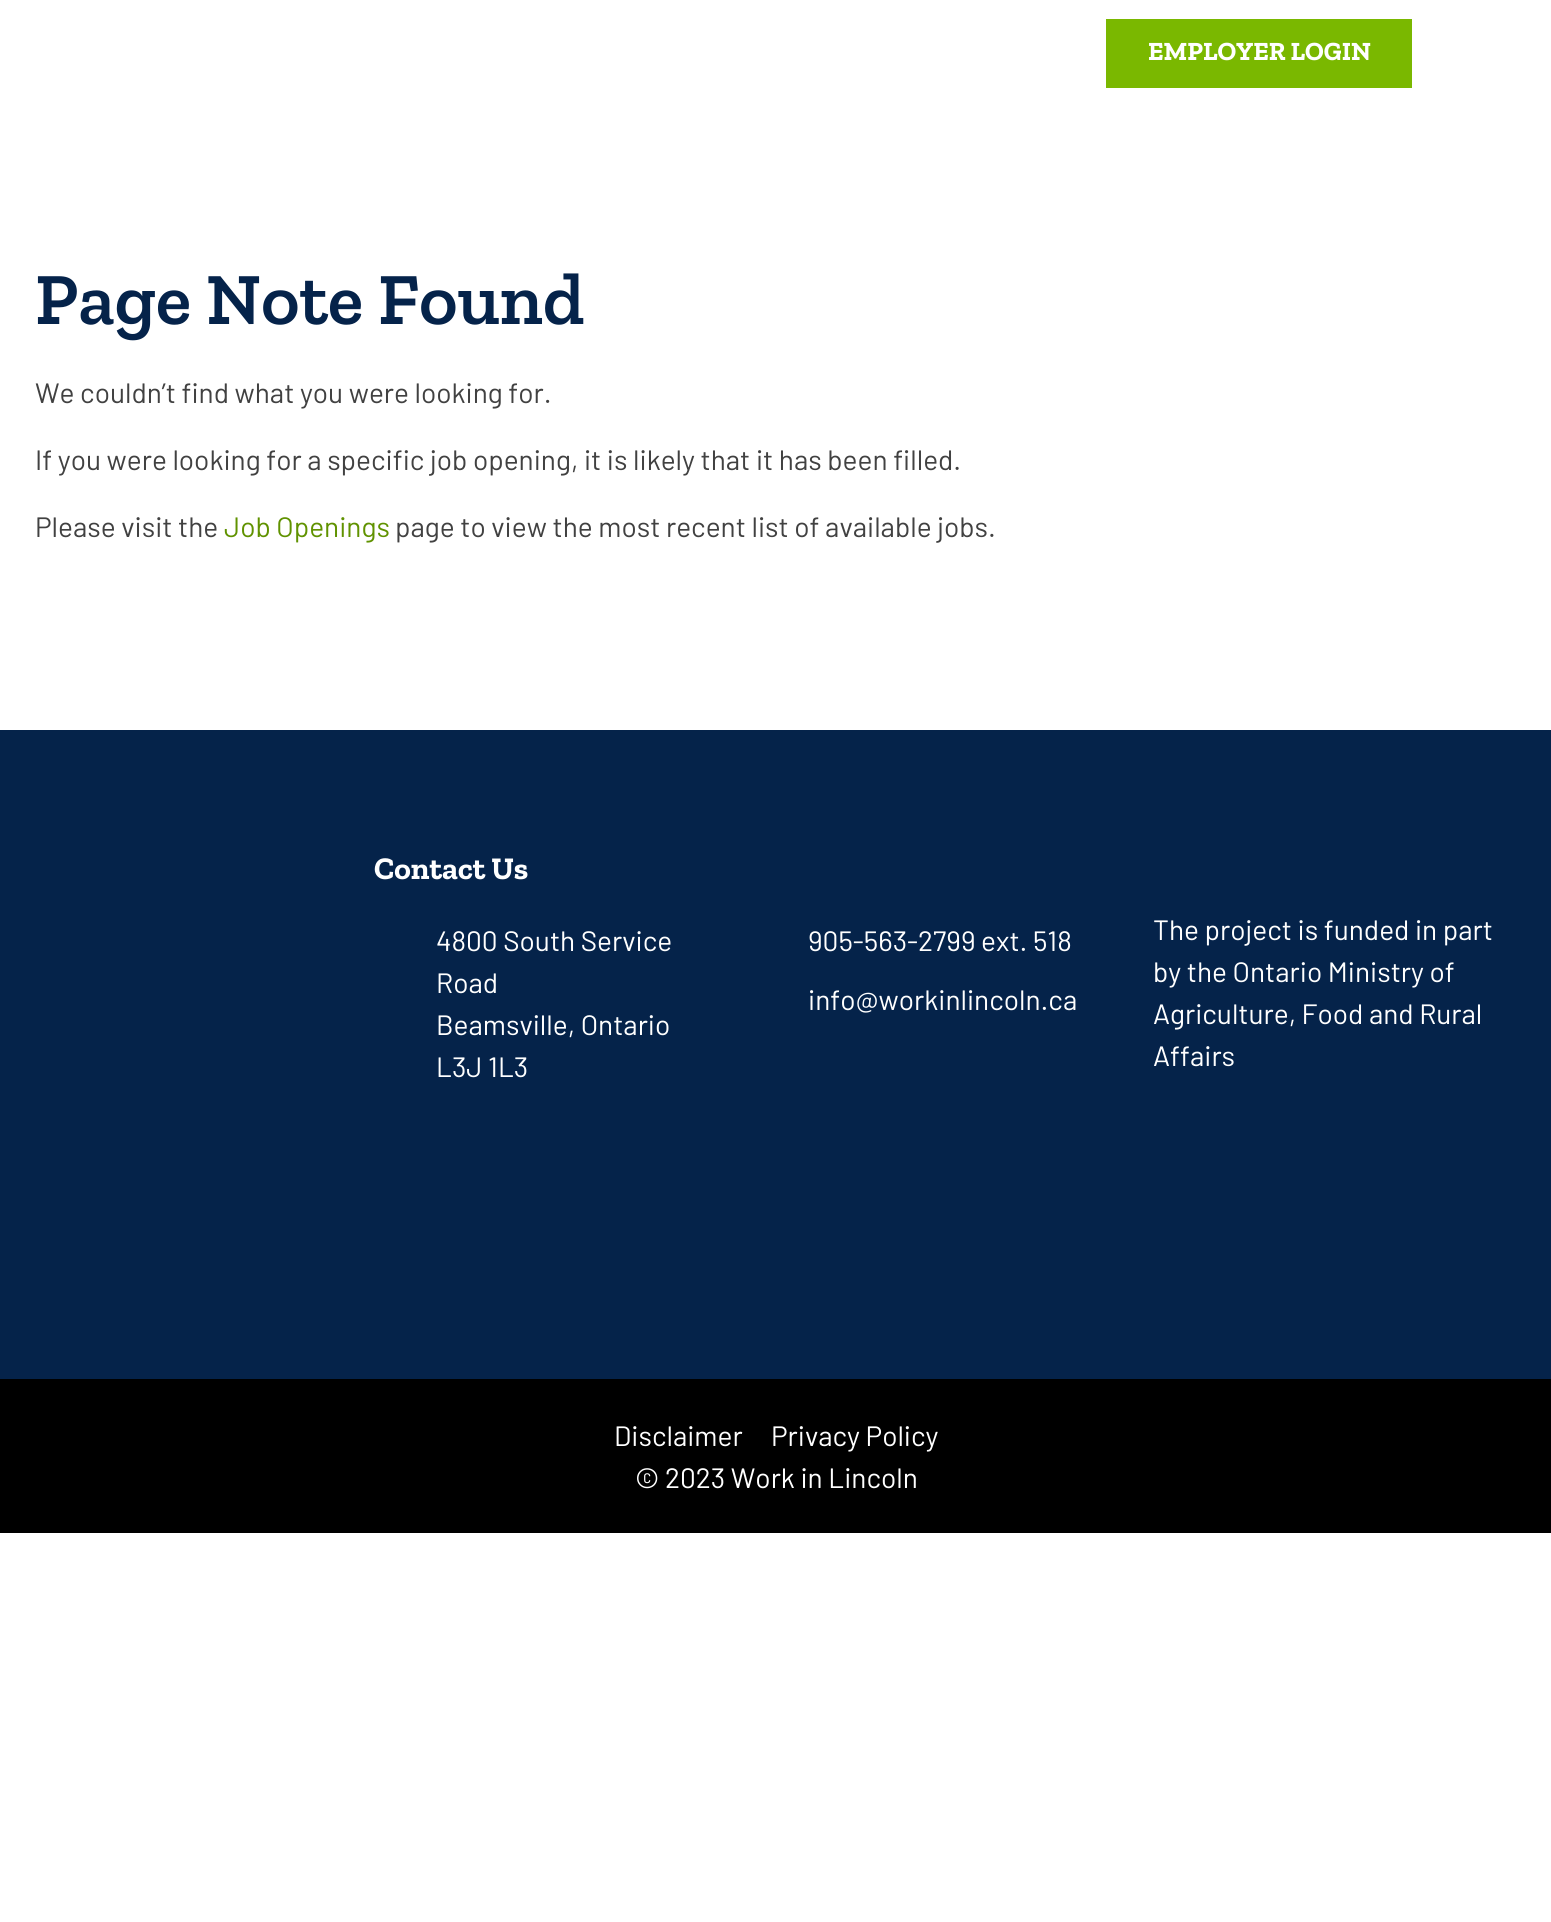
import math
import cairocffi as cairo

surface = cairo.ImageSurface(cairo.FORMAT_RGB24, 1551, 1922)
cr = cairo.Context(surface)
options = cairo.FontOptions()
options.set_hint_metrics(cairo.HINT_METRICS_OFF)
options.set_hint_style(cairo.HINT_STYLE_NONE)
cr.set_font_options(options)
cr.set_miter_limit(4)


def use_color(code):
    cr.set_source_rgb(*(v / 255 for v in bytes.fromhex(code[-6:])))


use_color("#ffffff")
cr.paint()
use_color("#7ab800")
cr.rectangle(1106, 19, 306, 69)
cr.fill()
cr.select_font_face("Zilla Slab", cairo.FONT_SLANT_NORMAL, cairo.FONT_WEIGHT_BOLD)
cr.set_font_size(26.25)
use_color("#ffffff")
cr.move_to(1148, 60)
cr.show_text("EMPLOYER LOGIN")
cr.select_font_face("Zilla Slab SemiBold")
cr.set_font_size(73.5)
use_color("#05234a")
cr.move_to(35, 324)
cr.show_text("Page Note Found")
cr.select_font_face("Barlow")
cr.set_font_size(28)
use_color("#414141")
cr.move_to(35, 403)
cr.show_text("We couldn’t find what you were looking for.")
cr.move_to(35, 470)
cr.show_text("If you were looking for a specific job opening, it is likely that it has been filled.")
cr.move_to(35, 537)
cr.show_text("Please visit the")
use_color("#609200")
cr.move_to(224, 537)
cr.show_text("Job Openings")
use_color("#414141")
cr.move_to(395, 537)
cr.show_text("page to view the most recent list of available jobs.")
use_color("#05234a")
cr.rectangle(0, 730, 1551, 649)
cr.fill()
cr.select_font_face("Zilla Slab", cairo.FONT_SLANT_NORMAL, cairo.FONT_WEIGHT_BOLD)
cr.set_font_size(31.5)
use_color("#ffffff")
cr.move_to(374, 879)
cr.show_text("Contact Us")
cr.select_font_face("Barlow")
cr.set_font_size(28)
cr.move_to(436, 951)
cr.show_text("4800 South Service")
cr.move_to(436, 993)
cr.show_text("Road")
cr.move_to(436, 1035)
cr.show_text("Beamsville, Ontario")
cr.move_to(436, 1077)
cr.show_text("L3J 1L3")
cr.move_to(808, 951)
cr.show_text("905-563-2799 ext. 518")
cr.move_to(808, 1010)
cr.show_text("info@workinlincoln.ca")
cr.move_to(1153, 940)
cr.show_text("The project is funded in part")
cr.move_to(1153, 982)
cr.show_text("by the Ontario Ministry of")
cr.move_to(1153, 1024)
cr.show_text("Agriculture, Food and Rural")
cr.move_to(1153, 1066)
cr.show_text("Affairs")
use_color("#000000")
cr.rectangle(0, 1379, 1551, 154)
cr.fill()
use_color("#ffffff")
cr.move_to(614, 1446)
cr.show_text("Disclaimer")
cr.move_to(771, 1446)
cr.show_text("Privacy Policy")
cr.move_to(635, 1488)
cr.show_text("© 2023 Work in Lincoln")
surface.write_to_png("result.png")
